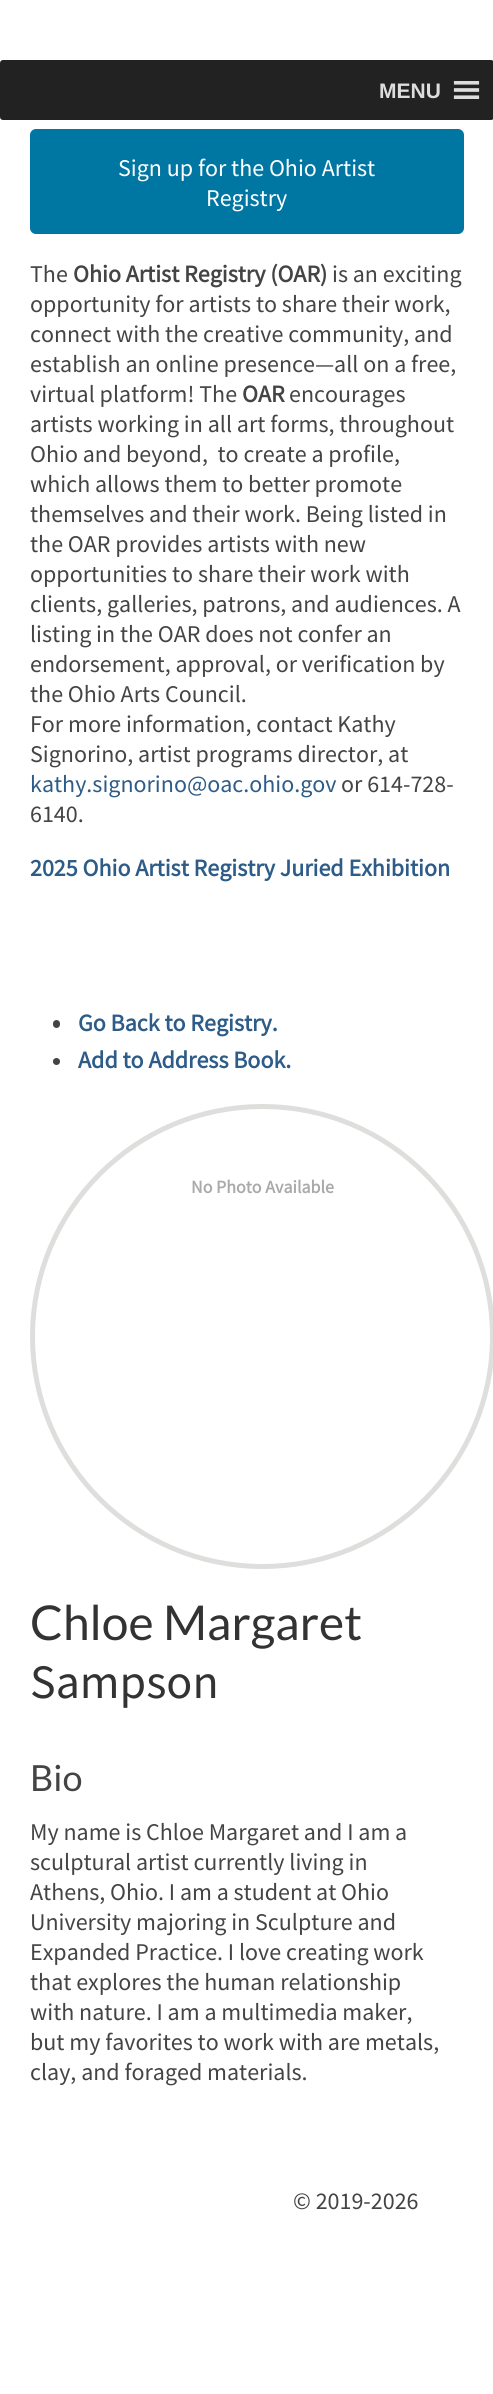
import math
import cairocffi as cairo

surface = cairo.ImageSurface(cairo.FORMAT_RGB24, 493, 2394)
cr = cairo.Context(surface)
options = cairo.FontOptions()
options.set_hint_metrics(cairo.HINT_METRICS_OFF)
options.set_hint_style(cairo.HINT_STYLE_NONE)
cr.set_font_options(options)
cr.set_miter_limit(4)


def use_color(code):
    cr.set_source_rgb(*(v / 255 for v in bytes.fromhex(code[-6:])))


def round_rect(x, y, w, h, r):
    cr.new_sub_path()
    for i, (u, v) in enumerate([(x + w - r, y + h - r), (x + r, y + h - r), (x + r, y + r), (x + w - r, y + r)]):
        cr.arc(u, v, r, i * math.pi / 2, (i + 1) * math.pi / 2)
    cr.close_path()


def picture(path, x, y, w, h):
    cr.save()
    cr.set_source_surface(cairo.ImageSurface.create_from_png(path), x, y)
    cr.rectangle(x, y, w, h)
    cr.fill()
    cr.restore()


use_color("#ffffff")
cr.paint()
use_color("#222222")
round_rect(0, 60, 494, 60, 3)
cr.fill()
cr.select_font_face("Liberation Sans", cairo.FONT_SLANT_NORMAL, cairo.FONT_WEIGHT_BOLD)
cr.set_font_size(21)
use_color("#dddddd")
cr.move_to(379, 98)
cr.show_text("MENU")
picture("img1.png", 453, 81, 27, 18)
use_color("#0076a3")
round_rect(30, 129, 434, 105, 6)
cr.fill()
cr.select_font_face("Source Sans Pro")
cr.set_font_size(24)
use_color("#ffffff")
cr.move_to(118, 176)
cr.show_text("Sign up for the Ohio Artist")
cr.move_to(206, 206)
cr.show_text("Registry")
use_color("#444444")
cr.move_to(30, 282)
cr.show_text("The")
cr.select_font_face("Source Sans Pro", cairo.FONT_SLANT_NORMAL, cairo.FONT_WEIGHT_BOLD)
cr.move_to(73, 282)
cr.show_text("Ohio Artist Registry (OAR)")
cr.select_font_face("Source Sans Pro")
cr.move_to(332, 282)
cr.show_text("is an exciting")
cr.move_to(30, 312)
cr.show_text("opportunity for artists to share their work,")
cr.move_to(30, 342)
cr.show_text("connect with the creative community, and")
cr.move_to(30, 372)
cr.show_text("establish an online presence—all on a free,")
cr.move_to(30, 402)
cr.show_text("virtual platform! The")
cr.select_font_face("Source Sans Pro", cairo.FONT_SLANT_NORMAL, cairo.FONT_WEIGHT_BOLD)
cr.move_to(242, 402)
cr.show_text("OAR")
cr.select_font_face("Source Sans Pro")
cr.move_to(289, 402)
cr.show_text("encourages")
cr.move_to(30, 432)
cr.show_text("artists working in all art forms, throughout")
cr.move_to(30, 462)
cr.show_text("Ohio and beyond,  to create a profile,")
cr.move_to(30, 492)
cr.show_text("which allows them to better promote")
cr.move_to(30, 522)
cr.show_text("themselves and their work. Being listed in")
cr.move_to(30, 552)
cr.show_text("the OAR provides artists with new")
cr.move_to(30, 582)
cr.show_text("opportunities to share their work with")
cr.move_to(30, 612)
cr.show_text("clients, galleries, patrons, and audiences. A")
cr.move_to(30, 642)
cr.show_text("listing in the OAR does not confer an")
cr.move_to(30, 672)
cr.show_text("endorsement, approval, or verification by")
cr.move_to(30, 702)
cr.show_text("the Ohio Arts Council.")
cr.move_to(30, 732)
cr.show_text("For more information, contact Kathy")
cr.move_to(30, 762)
cr.show_text("Signorino, artist programs director, at")
use_color("#2d5c88")
cr.move_to(30, 792)
cr.show_text("kathy.signorino@oac.ohio.gov")
use_color("#444444")
cr.move_to(341, 792)
cr.show_text("or 614-728-")
cr.move_to(30, 822)
cr.show_text("6140.")
cr.select_font_face("Source Sans Pro", cairo.FONT_SLANT_NORMAL, cairo.FONT_WEIGHT_BOLD)
use_color("#2d5c88")
cr.move_to(30, 876)
cr.show_text("2025 Ohio Artist Registry Juried Exhibition")
use_color("#444444")
round_rect(53, 1020, 7, 8, 3.5)
cr.fill()
use_color("#2d5c88")
cr.move_to(78, 1031)
cr.show_text("Go Back to Registry.")
use_color("#444444")
cr.new_path()
cr.arc(56.5, 1061.5, 3.5, 0, 2 * math.pi)
cr.fill()
use_color("#2d5c88")
cr.move_to(78, 1068)
cr.show_text("Add to Address Book.")
cr.new_path()
cr.arc(262.5, 1336.5, 230, 0, 2 * math.pi)
use_color("#dededc")
cr.set_line_width(5)
cr.stroke()
cr.set_font_size(18)
use_color("#aaaaaa")
cr.move_to(191, 1193)
cr.show_text("No Photo Available")
cr.select_font_face("Lato")
cr.set_font_size(48)
use_color("#333333")
cr.move_to(30, 1640)
cr.show_text("Chloe Margaret")
cr.select_font_face("Source Sans Pro")
cr.move_to(30, 1698)
cr.show_text("Sampson")
cr.select_font_face("Lato")
cr.set_font_size(36)
use_color("#444444")
cr.move_to(30, 1791)
cr.show_text("Bio")
cr.select_font_face("Source Sans Pro")
cr.set_font_size(24)
cr.move_to(30, 1840)
cr.show_text("My name is Chloe Margaret and I am a")
cr.move_to(30, 1870)
cr.show_text("sculptural artist currently living in")
cr.move_to(30, 1900)
cr.show_text("Athens, Ohio. I am a student at Ohio")
cr.move_to(30, 1930)
cr.show_text("University majoring in Sculpture and")
cr.move_to(30, 1960)
cr.show_text("Expanded Practice. I love creating work")
cr.move_to(30, 1990)
cr.show_text("that explores the human relationship")
cr.move_to(30, 2020)
cr.show_text("with nature. I am a multimedia maker,")
cr.move_to(30, 2050)
cr.show_text("but my favorites to work with are metals,")
cr.move_to(30, 2080)
cr.show_text("clay, and foraged materials.")
cr.move_to(293, 2209)
cr.show_text("© 2019-2026")
surface.write_to_png("result.png")
